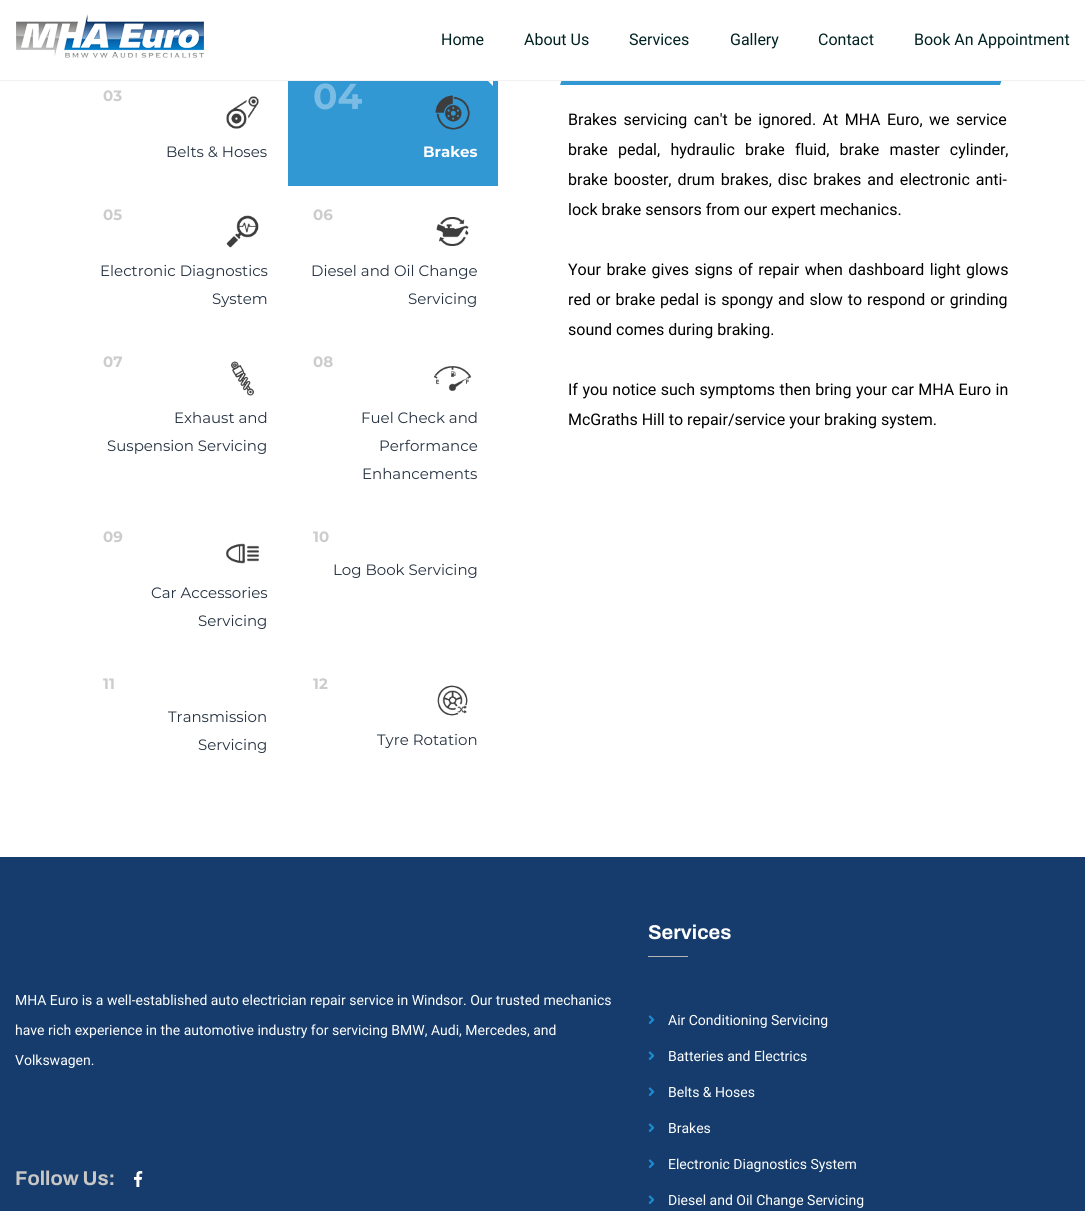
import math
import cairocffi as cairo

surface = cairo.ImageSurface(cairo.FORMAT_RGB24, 1085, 1211)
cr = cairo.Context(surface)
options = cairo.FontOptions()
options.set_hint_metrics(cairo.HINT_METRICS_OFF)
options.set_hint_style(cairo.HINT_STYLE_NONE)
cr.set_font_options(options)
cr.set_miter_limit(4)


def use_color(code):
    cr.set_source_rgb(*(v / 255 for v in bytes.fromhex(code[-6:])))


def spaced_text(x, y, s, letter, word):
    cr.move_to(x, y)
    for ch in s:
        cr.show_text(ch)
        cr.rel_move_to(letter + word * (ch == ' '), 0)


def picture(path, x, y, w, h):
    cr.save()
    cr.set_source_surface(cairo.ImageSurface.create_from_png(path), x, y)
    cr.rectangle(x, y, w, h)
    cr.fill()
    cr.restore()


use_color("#ffffff")
cr.paint()
use_color("#3298d4")
cr.new_path()
cr.move_to(575, 43)
cr.line_to(1015, 43)
cr.line_to(1000, 85)
cr.line_to(560, 85)
cr.close_path()
cr.fill()
use_color("#ffffff")
cr.rectangle(561, 43, 454, 37)
cr.fill()
use_color("#3298d4")
cr.rectangle(288, 81, 210, 105)
cr.fill()
use_color("#ffffff")
cr.new_path()
cr.move_to(493, 72)
cr.line_to(493, 86)
cr.line_to(486, 79)
cr.close_path()
cr.fill()
use_color("#f1f1f1")
cr.rectangle(0, 80, 1085, 1)
cr.fill()
picture("img1.png", 16, 14, 188, 44)
cr.select_font_face("Roboto")
cr.set_font_size(16)
use_color("#002121")
cr.move_to(441, 45)
cr.show_text("Home")
cr.move_to(524, 45)
cr.show_text("About Us")
cr.move_to(629, 45)
cr.show_text("Services")
cr.move_to(730, 45)
cr.show_text("Gallery")
cr.move_to(818, 45)
cr.show_text("Contact")
cr.move_to(914, 45)
cr.show_text("Book An Appointment")
cr.select_font_face("Montserrat", cairo.FONT_SLANT_NORMAL, cairo.FONT_WEIGHT_BOLD)
cr.set_font_size(15)
use_color("#cccccc")
cr.move_to(103, 101)
cr.show_text("03")
picture("img2.png", 226, 96, 33, 33)
cr.select_font_face("Montserrat")
use_color("#253241")
cr.move_to(166, 157)
cr.show_text("Belts & Hoses")
cr.select_font_face("Montserrat", cairo.FONT_SLANT_NORMAL, cairo.FONT_WEIGHT_BOLD)
cr.set_font_size(36)
use_color("#7abce3")
cr.move_to(313, 109)
cr.show_text("04")
picture("img3.png", 435, 95, 35, 35)
cr.set_font_size(15)
use_color("#ffffff")
cr.move_to(423, 157)
cr.show_text("Brakes")
use_color("#cccccc")
cr.move_to(103, 220)
cr.show_text("05")
picture("img4.png", 226, 215, 33, 33)
cr.select_font_face("Montserrat")
use_color("#253241")
cr.move_to(100, 276)
cr.show_text("Electronic Diagnostics")
cr.move_to(212, 304)
cr.show_text("System")
cr.select_font_face("Montserrat", cairo.FONT_SLANT_NORMAL, cairo.FONT_WEIGHT_BOLD)
use_color("#cccccc")
cr.move_to(313, 220)
cr.show_text("06")
picture("img5.png", 436, 216, 33, 30)
cr.select_font_face("Montserrat")
use_color("#253241")
cr.move_to(311, 276)
cr.show_text("Diesel and Oil Change")
cr.move_to(408, 304)
cr.show_text("Servicing")
cr.select_font_face("Montserrat", cairo.FONT_SLANT_NORMAL, cairo.FONT_WEIGHT_BOLD)
use_color("#cccccc")
cr.move_to(103, 367)
cr.show_text("07")
picture("img6.png", 230, 361, 25, 35)
cr.select_font_face("Montserrat")
use_color("#253241")
cr.move_to(174, 423)
cr.show_text("Exhaust and")
cr.move_to(107, 451)
cr.show_text("Suspension Servicing")
cr.select_font_face("Montserrat", cairo.FONT_SLANT_NORMAL, cairo.FONT_WEIGHT_BOLD)
use_color("#cccccc")
cr.move_to(313, 367)
cr.show_text("08")
picture("img7.png", 434, 366, 38, 25)
cr.select_font_face("Montserrat")
use_color("#253241")
cr.move_to(361, 423)
cr.show_text("Fuel Check and")
cr.move_to(379, 451)
cr.show_text("Performance")
cr.move_to(362, 479)
cr.show_text("Enhancements")
cr.select_font_face("Montserrat", cairo.FONT_SLANT_NORMAL, cairo.FONT_WEIGHT_BOLD)
use_color("#cccccc")
cr.move_to(103, 542)
cr.show_text("09")
picture("img8.png", 226, 543, 34, 21)
cr.select_font_face("Montserrat")
use_color("#253241")
cr.move_to(151, 598)
cr.show_text("Car Accessories")
cr.move_to(198, 626)
cr.show_text("Servicing")
cr.select_font_face("Montserrat", cairo.FONT_SLANT_NORMAL, cairo.FONT_WEIGHT_BOLD)
use_color("#cccccc")
cr.move_to(313, 542)
cr.show_text("10")
cr.select_font_face("Montserrat")
use_color("#253241")
cr.move_to(333, 575)
cr.show_text("Log Book Servicing")
cr.select_font_face("Montserrat", cairo.FONT_SLANT_NORMAL, cairo.FONT_WEIGHT_BOLD)
use_color("#cccccc")
cr.move_to(103, 689)
cr.show_text("11")
cr.select_font_face("Montserrat")
use_color("#253241")
cr.move_to(168, 722)
cr.show_text("Transmission")
cr.move_to(198, 750)
cr.show_text("Servicing")
cr.select_font_face("Montserrat", cairo.FONT_SLANT_NORMAL, cairo.FONT_WEIGHT_BOLD)
use_color("#cccccc")
cr.move_to(313, 689)
cr.show_text("12")
picture("img9.png", 437, 685, 31, 31)
cr.select_font_face("Montserrat")
use_color("#253241")
cr.move_to(377, 745)
cr.show_text("Tyre Rotation")
cr.select_font_face("Roboto")
cr.set_font_size(16)
use_color("#000000")
spaced_text(568, 125, "Brakes servicing can't be ignored. At MHA Euro, we service", 0, 2.5)
spaced_text(568, 155, "brake pedal, hydraulic brake fluid, brake master cylinder,", 0, 6.25)
spaced_text(568, 185, "brake booster, drum brakes, disc brakes and electronic anti-", 0, 2)
cr.move_to(568, 215)
cr.show_text("lock brake sensors from our expert mechanics.")
spaced_text(568, 275, "Your brake gives signs of repair when dashboard light glows", 0, 1.5)
spaced_text(568, 305, "red or brake pedal is spongy and slow to respond or grinding", 0, 1)
cr.move_to(568, 335)
cr.show_text("sound comes during braking.")
spaced_text(568, 395, "If you notice such symptoms then bring your car MHA Euro in", 0, 0.5)
cr.move_to(568, 425)
cr.show_text("McGraths Hill to repair/service your braking system.")
use_color("#153c6c")
cr.rectangle(0, 857, 1085, 354)
cr.fill()
cr.set_font_size(14)
use_color("#ffffff")
cr.move_to(15, 1005)
cr.show_text("MHA Euro is a well-established auto electrician repair service in Windsor. Our trusted mechanics")
cr.move_to(15, 1035)
cr.show_text("have rich experience in the automotive industry for servicing BMW, Audi, Mercedes, and")
cr.move_to(15, 1065)
cr.show_text("Volkswagen.")
cr.select_font_face("Archivo", cairo.FONT_SLANT_NORMAL, cairo.FONT_WEIGHT_BOLD)
cr.set_font_size(20)
use_color("#c7c7c6")
cr.move_to(15, 1185)
cr.show_text("Follow Us:")
picture("img10.png", 134, 1171, 9, 16)
use_color("#ffffff")
cr.move_to(648, 939)
cr.show_text("Services")
use_color("#b6b5b4")
cr.rectangle(648, 956, 40, 1)
cr.fill()
picture("img11.png", 648, 1015, 7, 9)
cr.select_font_face("Roboto")
cr.set_font_size(14)
use_color("#ffffff")
cr.move_to(668, 1025)
cr.show_text("Air Conditioning Servicing")
picture("img11.png", 648, 1051, 7, 9)
cr.move_to(668, 1061)
cr.show_text("Batteries and Electrics")
picture("img11.png", 648, 1087, 7, 9)
cr.move_to(668, 1097)
cr.show_text("Belts & Hoses")
picture("img11.png", 648, 1123, 7, 9)
cr.move_to(668, 1133)
cr.show_text("Brakes")
picture("img11.png", 648, 1159, 7, 9)
cr.move_to(668, 1169)
cr.show_text("Electronic Diagnostics System")
picture("img11.png", 648, 1195, 7, 9)
cr.move_to(668, 1205)
cr.show_text("Diesel and Oil Change Servicing")
surface.write_to_png("result.png")
